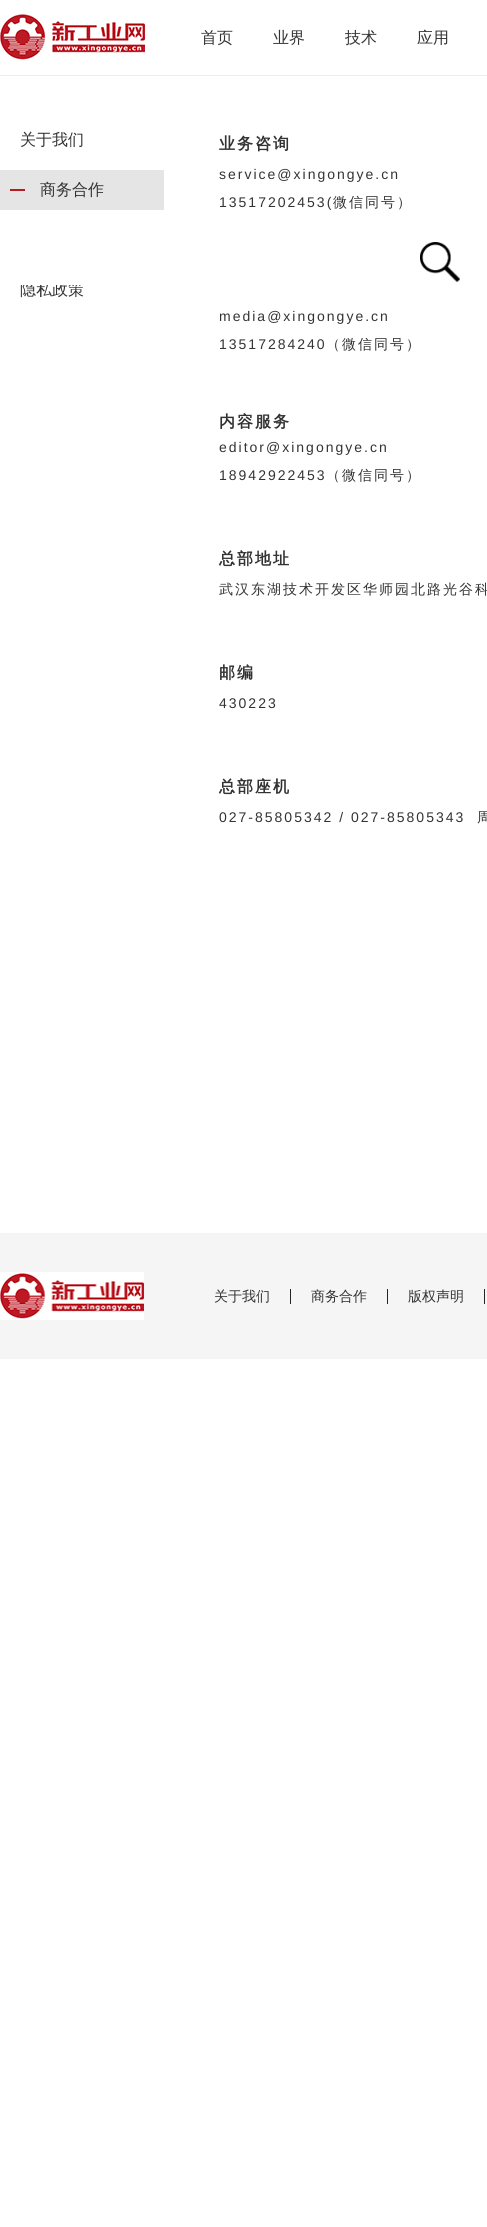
import math
import cairocffi as cairo

surface = cairo.ImageSurface(cairo.FORMAT_RGB24, 487, 2227)
cr = cairo.Context(surface)
options = cairo.FontOptions()
options.set_hint_metrics(cairo.HINT_METRICS_OFF)
options.set_hint_style(cairo.HINT_STYLE_NONE)
cr.set_font_options(options)
cr.set_miter_limit(4)


def use_color(code):
    cr.set_source_rgb(*(v / 255 for v in bytes.fromhex(code[-6:])))


def spaced_text(x, y, s, letter, word):
    cr.move_to(x, y)
    for ch in s:
        cr.show_text(ch)
        cr.rel_move_to(letter + word * (ch == ' '), 0)


def picture(path, x, y, w, h):
    cr.save()
    cr.set_source_surface(cairo.ImageSurface.create_from_png(path), x, y)
    cr.rectangle(x, y, w, h)
    cr.fill()
    cr.restore()


use_color("#ffffff")
cr.paint()
use_color("#eeeeee")
cr.rectangle(0, 75, 487, 1)
cr.fill()
picture("img1.png", 0, 14, 145, 46)
cr.select_font_face("WenQuanYi Zen Hei Medium")
cr.set_font_size(16)
use_color("#333333")
cr.move_to(201, 43)
cr.show_text("首页")
cr.move_to(273, 43)
cr.show_text("业界")
cr.move_to(345, 43)
cr.show_text("技术")
cr.move_to(417, 43)
cr.show_text("应用")
cr.move_to(20, 145)
cr.show_text("关于我们")
use_color("#e5e5e5")
cr.rectangle(0, 170, 164, 40)
cr.fill()
use_color("#b41d23")
cr.rectangle(10, 189, 15, 2)
cr.fill()
use_color("#333333")
cr.move_to(40, 195)
cr.show_text("商务合作")
cr.move_to(20, 295)
cr.show_text("隐私政策")
cr.select_font_face("WenQuanYi Zen Hei", cairo.FONT_SLANT_NORMAL, cairo.FONT_WEIGHT_BOLD)
spaced_text(219, 149, "业务咨询", 2, 0)
cr.select_font_face("Liberation Sans")
cr.set_font_size(14)
spaced_text(219, 179, "service@xingongye.cn", 2, 0)
spaced_text(219, 207, "13517202453(", 2, 0)
cr.select_font_face("WenQuanYi Zen Hei Medium")
spaced_text(333, 207, "微信同号）", 2, 0)
cr.select_font_face("Liberation Sans")
spaced_text(219, 321, "media@xingongye.cn", 2, 0)
spaced_text(219, 349, "13517284240", 2, 0)
cr.select_font_face("WenQuanYi Zen Hei Medium")
spaced_text(326, 349, "（微信同号）", 2, 0)
cr.select_font_face("WenQuanYi Zen Hei", cairo.FONT_SLANT_NORMAL, cairo.FONT_WEIGHT_BOLD)
cr.set_font_size(16)
spaced_text(219, 427, "内容服务", 2, 0)
cr.select_font_face("Liberation Sans")
cr.set_font_size(14)
spaced_text(219, 452, "editor@xingongye.cn", 2, 0)
spaced_text(219, 480, "18942922453", 2, 0)
cr.select_font_face("WenQuanYi Zen Hei Medium")
spaced_text(326, 480, "（微信同号）", 2, 0)
cr.select_font_face("WenQuanYi Zen Hei", cairo.FONT_SLANT_NORMAL, cairo.FONT_WEIGHT_BOLD)
cr.set_font_size(16)
spaced_text(219, 564, "总部地址", 2, 0)
cr.select_font_face("WenQuanYi Zen Hei Medium")
cr.set_font_size(14)
spaced_text(219, 594, "武汉东湖技术开发区华师园北路光谷科", 2, 0)
cr.select_font_face("WenQuanYi Zen Hei", cairo.FONT_SLANT_NORMAL, cairo.FONT_WEIGHT_BOLD)
cr.set_font_size(16)
spaced_text(219, 678, "邮编", 2, 0)
cr.select_font_face("Liberation Sans")
cr.set_font_size(14)
spaced_text(219, 708, "430223", 2, 0)
cr.select_font_face("WenQuanYi Zen Hei", cairo.FONT_SLANT_NORMAL, cairo.FONT_WEIGHT_BOLD)
cr.set_font_size(16)
spaced_text(219, 792, "总部座机", 2, 0)
cr.select_font_face("Liberation Sans")
cr.set_font_size(14)
spaced_text(219, 822, "027-85805342 / 027-85805343", 2, 0)
cr.select_font_face("WenQuanYi Zen Hei Medium")
spaced_text(477, 822, "周", 2, 0)
picture("img2.png", 420, 242, 40, 40)
use_color("#ffffff")
cr.rectangle(20, 282, 64, 3)
cr.fill()
use_color("#f5f5f5")
cr.rectangle(0, 1233, 487, 126)
cr.fill()
picture("img3.png", 0, 1272, 144, 48)
use_color("#252525")
cr.rectangle(290, 1289, 1, 15)
cr.fill()
use_color("#333333")
cr.move_to(214, 1301)
cr.show_text("关于我们")
use_color("#252525")
cr.rectangle(387, 1289, 1, 15)
cr.fill()
use_color("#333333")
cr.move_to(311, 1301)
cr.show_text("商务合作")
use_color("#252525")
cr.rectangle(484, 1289, 1, 15)
cr.fill()
use_color("#333333")
cr.move_to(408, 1301)
cr.show_text("版权声明")
surface.write_to_png("result.png")
